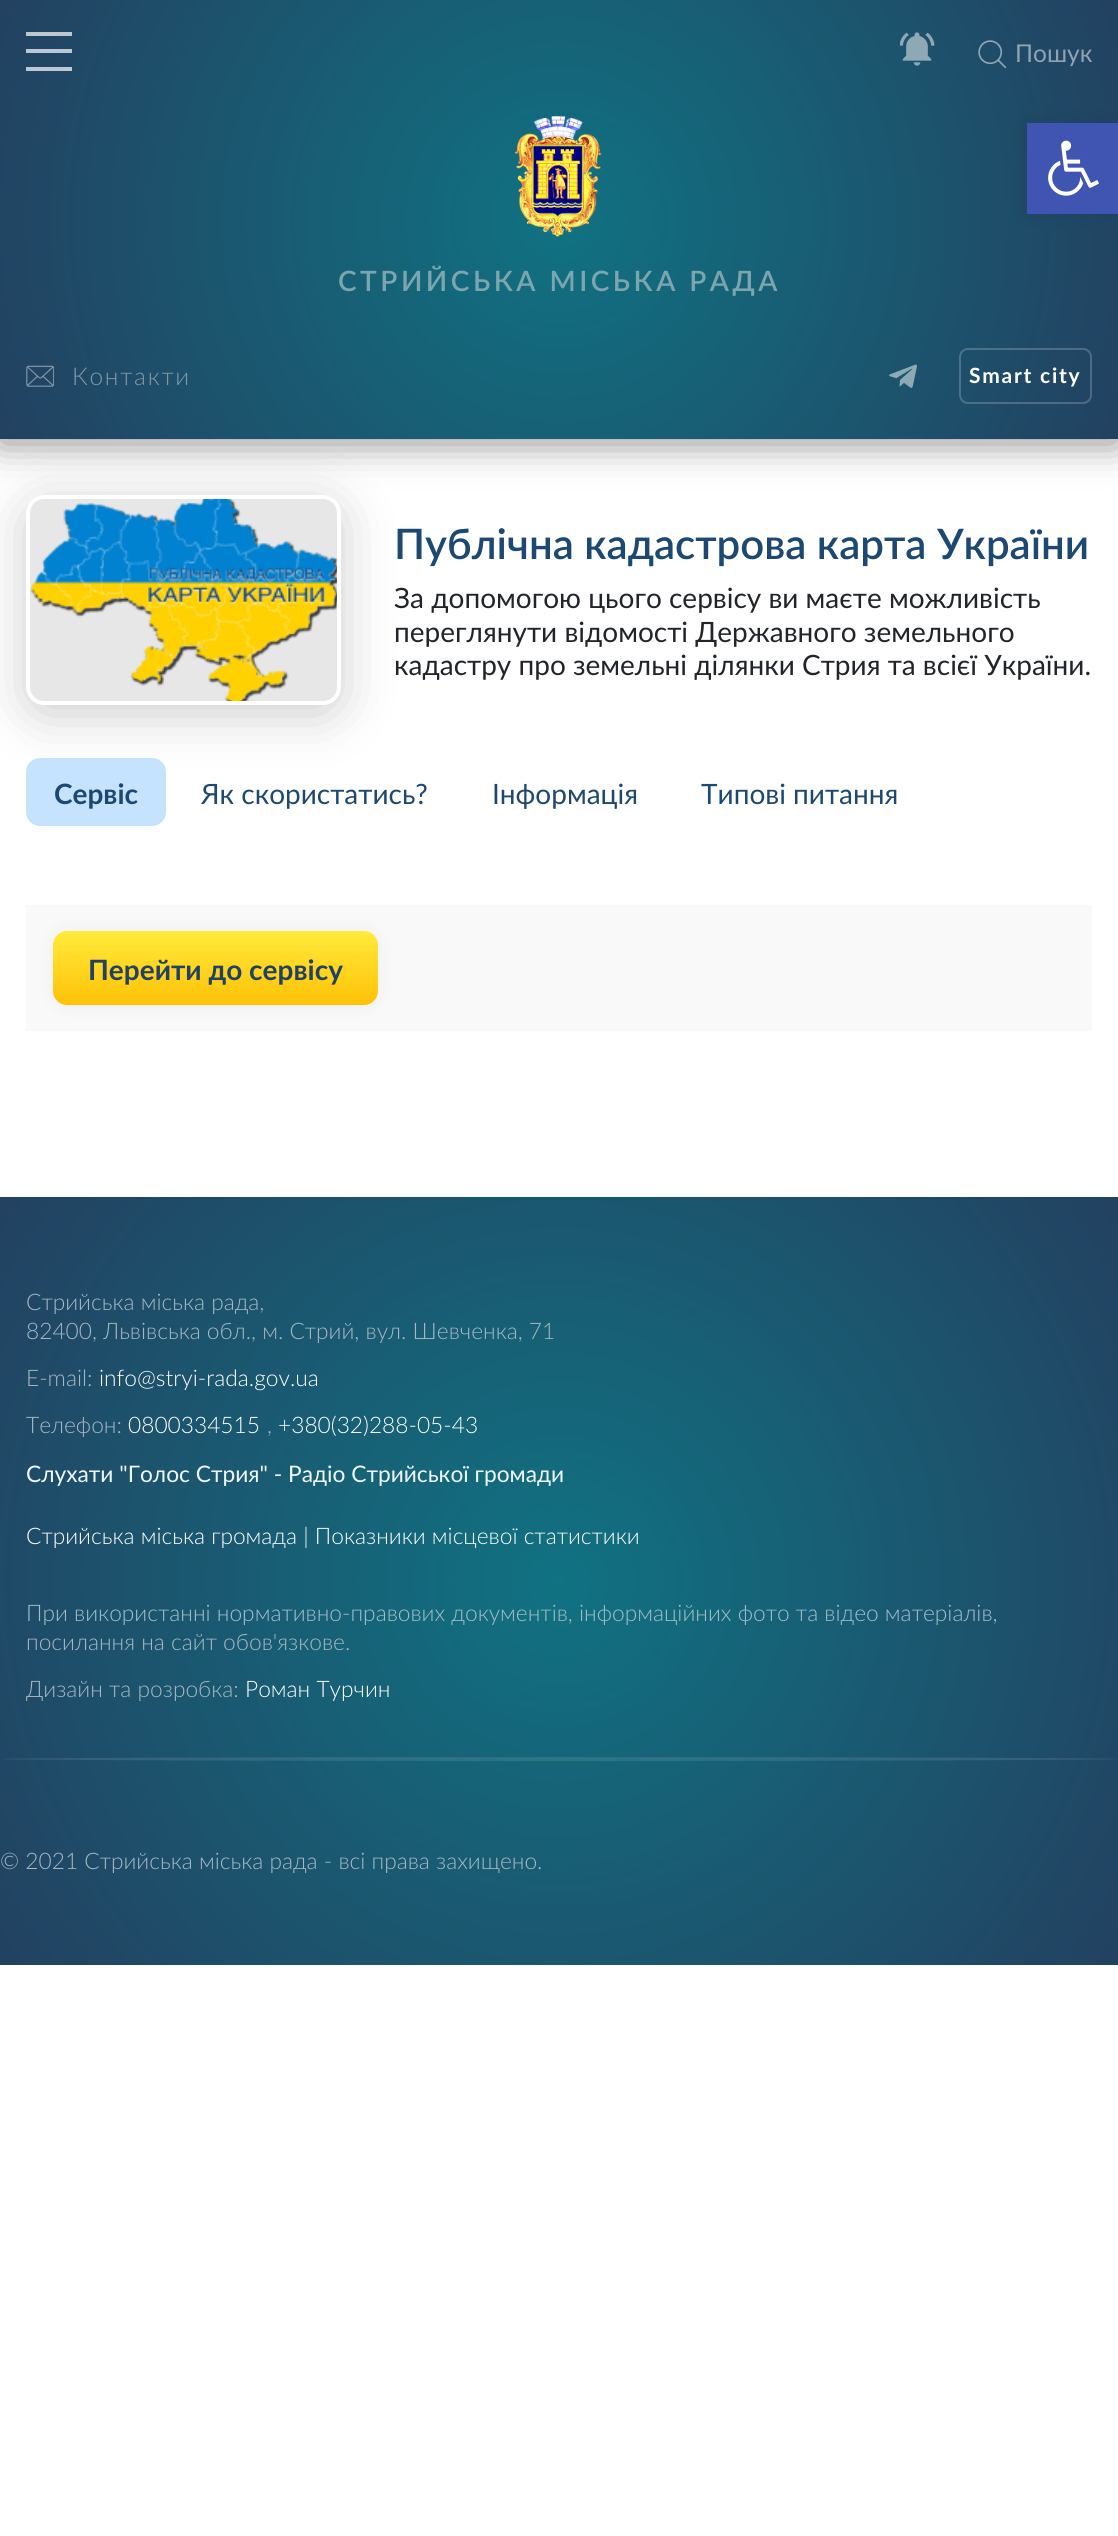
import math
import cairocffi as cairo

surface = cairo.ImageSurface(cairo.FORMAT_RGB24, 1118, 2536)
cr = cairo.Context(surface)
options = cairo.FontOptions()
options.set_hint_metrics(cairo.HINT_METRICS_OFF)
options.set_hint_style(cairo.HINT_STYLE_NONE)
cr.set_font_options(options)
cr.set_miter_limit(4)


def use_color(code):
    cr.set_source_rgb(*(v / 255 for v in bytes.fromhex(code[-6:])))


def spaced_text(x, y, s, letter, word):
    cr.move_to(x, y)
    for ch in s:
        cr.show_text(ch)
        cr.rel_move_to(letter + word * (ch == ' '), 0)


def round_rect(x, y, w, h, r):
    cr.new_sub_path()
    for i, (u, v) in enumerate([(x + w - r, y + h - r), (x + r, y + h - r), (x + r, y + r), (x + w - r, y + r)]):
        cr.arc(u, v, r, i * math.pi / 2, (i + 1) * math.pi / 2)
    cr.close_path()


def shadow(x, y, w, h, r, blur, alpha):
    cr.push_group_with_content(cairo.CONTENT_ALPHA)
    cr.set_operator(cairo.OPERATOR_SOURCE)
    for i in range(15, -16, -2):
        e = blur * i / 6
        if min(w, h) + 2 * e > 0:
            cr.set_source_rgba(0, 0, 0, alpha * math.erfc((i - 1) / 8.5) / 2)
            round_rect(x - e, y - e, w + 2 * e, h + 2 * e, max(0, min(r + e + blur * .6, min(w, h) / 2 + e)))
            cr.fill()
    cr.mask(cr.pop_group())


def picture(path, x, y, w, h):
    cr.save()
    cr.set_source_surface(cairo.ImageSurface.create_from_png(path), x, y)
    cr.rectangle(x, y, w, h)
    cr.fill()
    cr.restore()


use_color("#ffffff")
cr.paint()
use_color("#000000")
shadow(0, 4, 1118, 439, 0, 19, 0.45)
gradient = cairo.RadialGradient(559, 220, 0, 559, 220, 601)
gradient.add_color_stop_rgba(0, 0.063, 0.447, 0.51, 1)
gradient.add_color_stop_rgba(1, 0.137, 0.255, 0.38, 1)
cr.set_source(gradient)
cr.rectangle(0, 0, 1118, 439)
cr.fill()
gradient = cairo.RadialGradient(559, 220, 0, 559, 220, 601)
gradient.add_color_stop_rgba(0, 0.718, 0.835, 0.855, 1)
gradient.add_color_stop_rgba(1, 0.741, 0.776, 0.816, 1)
cr.set_source(gradient)
cr.rectangle(26, 67, 46, 4)
cr.fill()
cr.rectangle(26, 49, 46, 4)
cr.fill()
cr.rectangle(26, 32, 46, 4)
cr.fill()
picture("img1.png", 900, 32, 35, 34)
picture("img2.png", 978, 40, 29, 29)
cr.select_font_face("Lato")
cr.set_font_size(24.5)
use_color("#90a3b2")
cr.move_to(1015, 62)
cr.show_text("Пошук")
picture("img3.png", 514, 115, 88, 122)
cr.select_font_face("Lato SemiBold")
cr.set_font_size(28)
use_color("#7ca6af")
spaced_text(338, 291, "СТРИЙСЬКА МІСЬКА РАДА", 3.5, 0)
picture("img4.png", 26, 365, 28, 22)
cr.select_font_face("Lato Light")
cr.set_font_size(24.5)
use_color("#8198a6")
spaced_text(72, 385, "Контакти", 1.75, 0)
picture("img5.png", 889, 364, 28, 24)
round_rect(960, 349, 131, 54, 8)
cr.set_source_rgba(1, 1, 1, 0.2)
cr.stroke()
cr.select_font_face("Lato", cairo.FONT_SLANT_NORMAL, cairo.FONT_WEIGHT_BOLD)
cr.set_font_size(21)
use_color("#ffffff")
spaced_text(969, 383, "Smart city", 1.75, 0)
cr.set_source_rgba(0.847, 0.847, 0.847, 0.13)
cr.new_path()
cr.move_to(560, 439)
cr.curve_to(868.5, 439, 1119, 440, 1119, 441)
cr.curve_to(1119, 442, 868.5, 443, 560, 443)
cr.curve_to(251.5, 443, 1, 442, 1, 441)
cr.curve_to(1, 440, 251.5, 439, 560, 439)
cr.close_path()
cr.fill()
use_color("#000000")
shadow(26, 504, 315, 210, 18, 26, 0.2)
use_color("#e7e7e7")
round_rect(26, 495, 315, 210, 18)
cr.fill()
picture("img6.png", 31, 499, 311, 202)
round_rect(28, 497, 311, 206, 16)
use_color("#ffffff")
cr.set_line_width(4)
cr.stroke()
cr.select_font_face("Lato SemiBold")
cr.set_font_size(42)
use_color("#1c4871")
cr.move_to(394, 559)
cr.show_text("Публічна кадастрова карта України")
cr.select_font_face("Lato")
cr.set_font_size(28)
use_color("#212529")
cr.move_to(394, 608)
cr.show_text("За допомогою цього сервісу ви маєте можливість")
cr.move_to(394, 642)
cr.show_text("переглянути відомості Державного земельного")
cr.move_to(394, 675)
cr.show_text("кадастру про земельні ділянки Стрия та всієї України.")
use_color("#c5e3ff")
round_rect(26, 758, 140, 68, 14)
cr.fill()
cr.select_font_face("Lato", cairo.FONT_SLANT_NORMAL, cairo.FONT_WEIGHT_BOLD)
use_color("#1c4871")
cr.move_to(54, 804)
cr.show_text("Сервіс")
cr.select_font_face("Lato")
cr.move_to(201, 804)
cr.show_text("Як скористатись?")
cr.move_to(492, 804)
cr.show_text("Інформація")
cr.move_to(701, 804)
cr.show_text("Типові питання")
use_color("#f9f9f9")
cr.rectangle(26, 905, 1066, 126)
cr.fill()
use_color("#000000")
shadow(53, 931, 325, 74, 14, 9, 0.05)
gradient = cairo.LinearGradient(215, 931, 215, 1005)
gradient.add_color_stop_rgba(0, 1, 0.922, 0.231, 1)
gradient.add_color_stop_rgba(1, 1, 0.757, 0.027, 1)
cr.set_source(gradient)
round_rect(53, 931, 325, 74, 14)
cr.fill()
cr.select_font_face("Lato", cairo.FONT_SLANT_NORMAL, cairo.FONT_WEIGHT_BOLD)
use_color("#234161")
cr.move_to(88, 980)
cr.show_text("Перейти до сервісу")
gradient = cairo.RadialGradient(559, 1581, 0, 559, 1581, 678)
gradient.add_color_stop_rgba(0, 0.063, 0.447, 0.51, 1)
gradient.add_color_stop_rgba(1, 0.137, 0.255, 0.38, 1)
cr.set_source(gradient)
cr.rectangle(0, 1197, 1118, 768)
cr.fill()
cr.select_font_face("Lato Light")
cr.set_font_size(22.75)
use_color("#a5b8c3")
cr.move_to(26, 1310)
cr.show_text("Стрийська міська рада,")
cr.move_to(26, 1339)
cr.show_text("82400, Львівська обл., м. Стрий, вул. Шевченка, 71")
cr.move_to(26, 1386)
cr.show_text("E-mail:")
use_color("#ffffff")
cr.move_to(99, 1386)
cr.show_text("info@stryi-rada.gov.ua")
use_color("#a5b8c3")
cr.move_to(26, 1433)
cr.show_text("Телефон:")
use_color("#ffffff")
cr.move_to(128, 1433)
cr.show_text("0800334515")
use_color("#a5b8c3")
cr.move_to(267, 1433)
cr.show_text(",")
use_color("#ffffff")
cr.move_to(278, 1433)
cr.show_text("+380(32)288-05-43")
cr.select_font_face("Lato")
use_color("#f0f8ff")
cr.move_to(26, 1482)
cr.show_text("Слухати \"Голос Стрия\" - Радіо Стрийської громади")
cr.select_font_face("Lato Light")
use_color("#ffffff")
cr.move_to(26, 1544)
cr.show_text("Стрийська міська громада | Показники місцевої статистики")
use_color("#a2bfc8")
cr.move_to(26, 1621)
cr.show_text("При використанні нормативно-правових документів, інформаційних фото та відео матеріалів,")
use_color("#a5b8c3")
cr.move_to(26, 1650)
cr.show_text("посилання на сайт обов'язкове.")
cr.move_to(26, 1697)
cr.show_text("Дизайн та розробка:")
use_color("#ffffff")
cr.move_to(245, 1697)
cr.show_text("Роман Турчин")
cr.set_source_rgba(0.847, 0.847, 0.847, 0.13)
cr.new_path()
cr.move_to(560, 1757)
cr.curve_to(868.5, 1757, 1119, 1758, 1119, 1759)
cr.curve_to(1119, 1760, 868.5, 1761, 560, 1761)
cr.curve_to(251.5, 1761, 1, 1760, 1, 1759)
cr.curve_to(1, 1758, 251.5, 1757, 560, 1757)
cr.close_path()
cr.fill()
use_color("#a5b8c3")
cr.move_to(0, 1869)
cr.show_text("© 2021 Стрийська міська рада - всі права захищено.")
use_color("#000000")
shadow(1027, 123, 91, 91, 0, 9, 0.1)
use_color("#4054b2")
cr.rectangle(1027, 123, 91, 91)
cr.fill()
picture("img7.png", 1048, 140, 51, 56)
surface.write_to_png("result.png")
